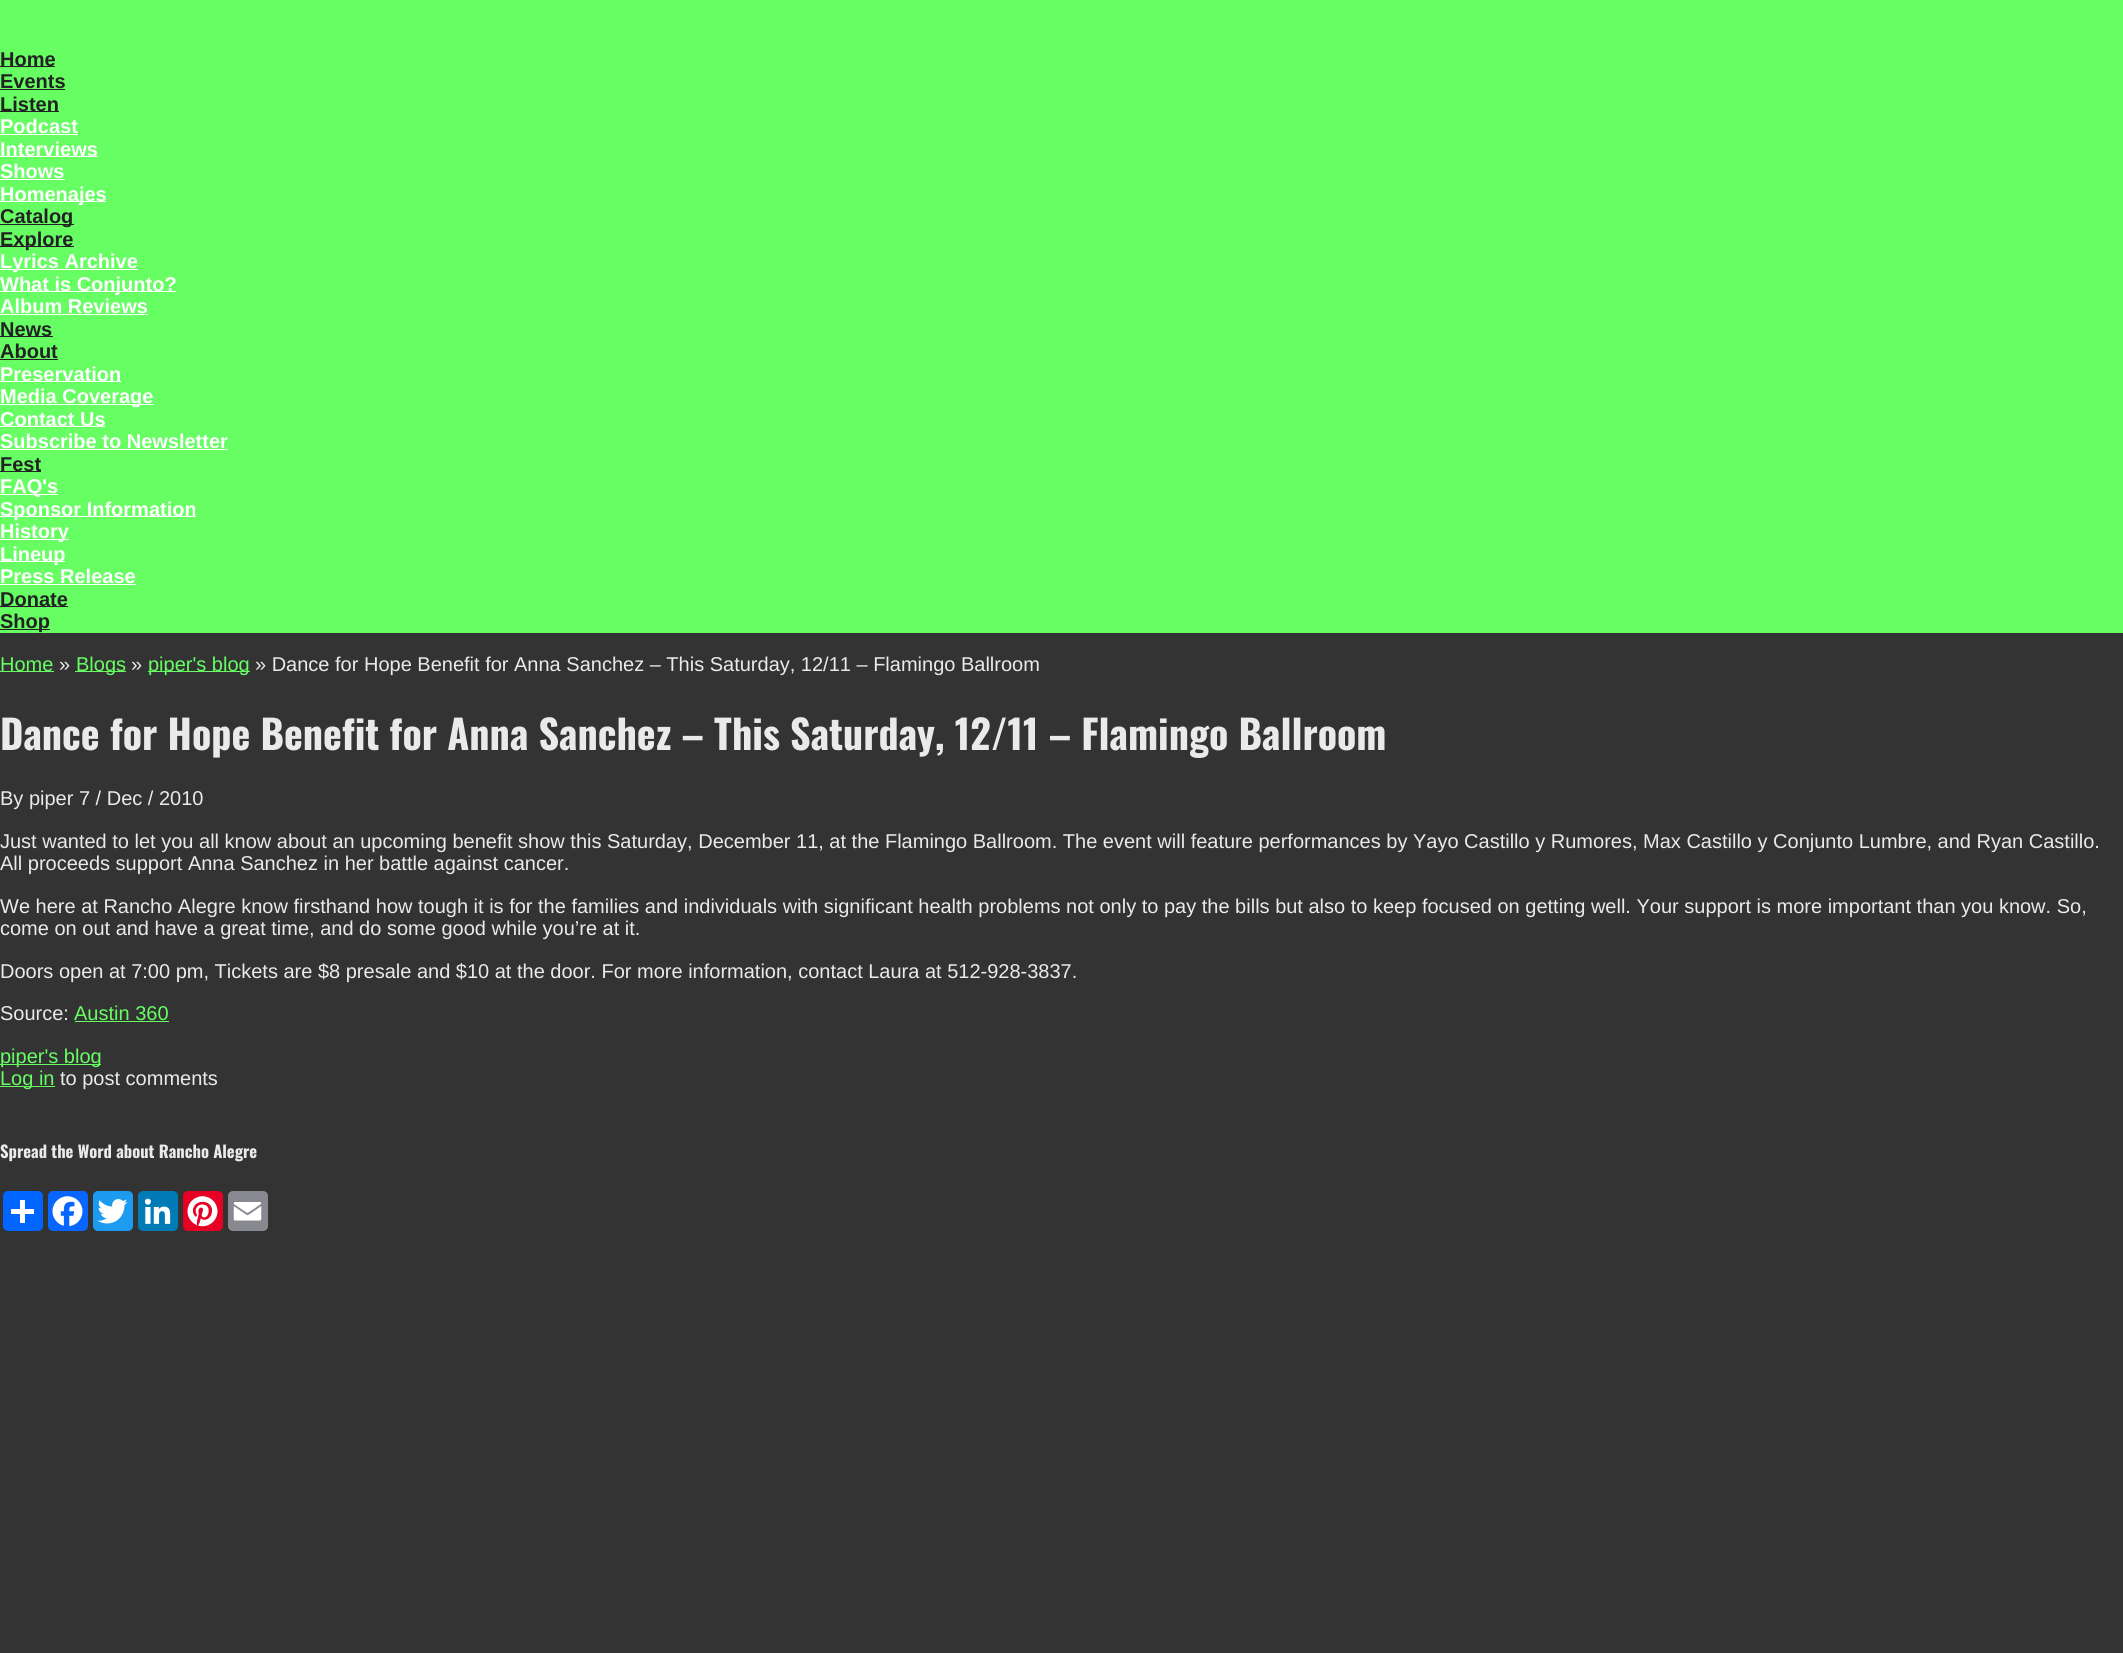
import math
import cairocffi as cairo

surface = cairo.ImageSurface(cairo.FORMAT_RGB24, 2123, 1653)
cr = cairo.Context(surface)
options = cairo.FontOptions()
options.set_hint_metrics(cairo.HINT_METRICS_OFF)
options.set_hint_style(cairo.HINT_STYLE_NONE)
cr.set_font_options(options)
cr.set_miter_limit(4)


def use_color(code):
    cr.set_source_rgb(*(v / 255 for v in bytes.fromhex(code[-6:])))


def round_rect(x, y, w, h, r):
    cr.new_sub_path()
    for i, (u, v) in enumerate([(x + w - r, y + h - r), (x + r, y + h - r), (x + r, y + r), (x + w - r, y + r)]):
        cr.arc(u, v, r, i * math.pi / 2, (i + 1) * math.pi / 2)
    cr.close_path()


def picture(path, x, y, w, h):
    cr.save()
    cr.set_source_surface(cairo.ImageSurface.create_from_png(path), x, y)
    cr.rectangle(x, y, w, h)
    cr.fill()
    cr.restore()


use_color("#333333")
cr.paint()
use_color("#66fe63")
cr.rectangle(0, 0, 2123, 633)
cr.fill()
use_color("#222222")
cr.rectangle(0, 66, 55, 1)
cr.fill()
cr.select_font_face("Liberation Sans", cairo.FONT_SLANT_NORMAL, cairo.FONT_WEIGHT_BOLD)
cr.set_font_size(20)
cr.move_to(0, 66)
cr.show_text("Home")
cr.move_to(0, 88)
cr.show_text("Events")
cr.rectangle(0, 89, 65, 1)
cr.fill()
cr.rectangle(0, 111, 59, 1)
cr.fill()
cr.move_to(0, 111)
cr.show_text("Listen")
use_color("#ffffff")
cr.move_to(0, 133)
cr.show_text("Podcast")
cr.rectangle(0, 134, 78, 1)
cr.fill()
cr.rectangle(0, 156, 98, 1)
cr.fill()
cr.move_to(0, 156)
cr.show_text("Interviews")
cr.move_to(0, 178)
cr.show_text("Shows")
cr.rectangle(0, 179, 65, 1)
cr.fill()
cr.rectangle(0, 201, 106, 1)
cr.fill()
cr.move_to(0, 201)
cr.show_text("Homenajes")
use_color("#222222")
cr.rectangle(0, 224, 74, 1)
cr.fill()
cr.move_to(0, 223)
cr.show_text("Catalog")
cr.rectangle(0, 246, 74, 1)
cr.fill()
cr.move_to(0, 246)
cr.show_text("Explore")
use_color("#ffffff")
cr.rectangle(0, 269, 138, 1)
cr.fill()
cr.move_to(0, 268)
cr.show_text("Lyrics Archive")
cr.rectangle(0, 291, 176, 1)
cr.fill()
cr.move_to(0, 291)
cr.show_text("What is Conjunto?")
cr.move_to(0, 313)
cr.show_text("Album Reviews")
cr.rectangle(0, 314, 148, 1)
cr.fill()
use_color("#222222")
cr.rectangle(0, 336, 53, 1)
cr.fill()
cr.move_to(0, 336)
cr.show_text("News")
cr.move_to(0, 358)
cr.show_text("About")
cr.rectangle(0, 359, 58, 1)
cr.fill()
use_color("#ffffff")
cr.rectangle(0, 381, 121, 1)
cr.fill()
cr.move_to(0, 381)
cr.show_text("Preservation")
cr.rectangle(0, 404, 154, 1)
cr.fill()
cr.move_to(0, 403)
cr.show_text("Media Coverage")
cr.rectangle(0, 426, 105, 1)
cr.fill()
cr.move_to(0, 426)
cr.show_text("Contact Us")
cr.move_to(0, 448)
cr.show_text("Subscribe to Newsletter")
cr.rectangle(0, 449, 228, 1)
cr.fill()
use_color("#222222")
cr.rectangle(0, 471, 41, 1)
cr.fill()
cr.move_to(0, 471)
cr.show_text("Fest")
use_color("#ffffff")
cr.rectangle(0, 494, 58, 1)
cr.fill()
cr.move_to(0, 493)
cr.show_text("FAQ's")
cr.rectangle(0, 516, 196, 1)
cr.fill()
cr.move_to(0, 516)
cr.show_text("Sponsor Information")
cr.rectangle(0, 539, 69, 1)
cr.fill()
cr.move_to(0, 538)
cr.show_text("History")
cr.rectangle(0, 561, 65, 1)
cr.fill()
cr.move_to(0, 561)
cr.show_text("Lineup")
cr.move_to(0, 583)
cr.show_text("Press Release")
cr.rectangle(0, 584, 136, 1)
cr.fill()
use_color("#222222")
cr.rectangle(0, 606, 68, 1)
cr.fill()
cr.move_to(0, 606)
cr.show_text("Donate")
cr.rectangle(0, 629, 50, 1)
cr.fill()
cr.move_to(0, 628)
cr.show_text("Shop")
use_color("#66fe63")
cr.rectangle(0, 671, 54, 1)
cr.fill()
cr.select_font_face("Liberation Sans")
cr.move_to(0, 671)
cr.show_text("Home")
use_color("#eaeaea")
cr.move_to(59, 671)
cr.show_text("»")
use_color("#66fe63")
cr.rectangle(75, 671, 51, 1)
cr.fill()
cr.move_to(76, 671)
cr.show_text("Blogs")
use_color("#eaeaea")
cr.move_to(131, 671)
cr.show_text("»")
use_color("#66fe63")
cr.rectangle(148, 671, 102, 1)
cr.fill()
cr.move_to(148, 671)
cr.show_text("piper's blog")
use_color("#eaeaea")
cr.move_to(255, 671)
cr.show_text("» Dance for Hope Benefit for Anna Sanchez – This Saturday, 12/11 – Flamingo Ballroom")
cr.select_font_face("Oswald", cairo.FONT_SLANT_NORMAL, cairo.FONT_WEIGHT_BOLD)
cr.set_font_size(40)
cr.move_to(0, 750)
cr.show_text("Dance for Hope Benefit for Anna Sanchez – This Saturday, 12/11 – Flamingo Ballroom")
cr.select_font_face("Liberation Sans")
cr.set_font_size(20)
cr.move_to(0, 805)
cr.show_text("By piper 7 / Dec / 2010")
cr.move_to(0, 848)
cr.show_text("Just wanted to let you all know about an upcoming benefit show this Saturday, December 11, at the Flamingo Ballroom. The event will feature performances by Yayo Castillo y Rumores, Max Castillo y Conjunto Lumbre, and Ryan Castillo.")
cr.move_to(0, 870)
cr.show_text("All proceeds support Anna Sanchez in her battle against cancer.")
cr.move_to(0, 913)
cr.show_text("We here at Rancho Alegre know firsthand how tough it is for the families and individuals with significant health problems not only to pay the bills but also to keep focused on getting well. Your support is more important than you know. So,")
cr.move_to(0, 935)
cr.show_text("come on out and have a great time, and do some good while you’re at it.")
cr.move_to(0, 978)
cr.show_text("Doors open at 7:00 pm, Tickets are $8 presale and $10 at the door. For more information, contact Laura at 512-928-3837.")
cr.move_to(0, 1020)
cr.show_text("Source:")
use_color("#66fe63")
cr.move_to(74, 1020)
cr.show_text("Austin 360")
cr.rectangle(75, 1021, 94, 1)
cr.fill()
cr.rectangle(0, 1064, 101, 1)
cr.fill()
cr.move_to(0, 1063)
cr.show_text("piper's blog")
cr.rectangle(0, 1086, 55, 1)
cr.fill()
cr.move_to(0, 1085)
cr.show_text("Log in")
use_color("#eaeaea")
cr.move_to(60, 1085)
cr.show_text("to post comments")
cr.select_font_face("Oswald", cairo.FONT_SLANT_NORMAL, cairo.FONT_WEIGHT_BOLD)
cr.set_font_size(16.6)
cr.move_to(0, 1158)
cr.show_text("Spread the Word about Rancho Alegre")
use_color("#0166ff")
round_rect(3, 1191, 40, 40, 5)
cr.fill()
use_color("#ffffff")
cr.rectangle(20, 1200, 5, 23)
cr.fill()
cr.rectangle(11, 1209, 23, 5)
cr.fill()
use_color("#0866ff")
round_rect(48, 1191, 40, 40, 5)
cr.fill()
picture("img1.png", 52, 1196, 31, 31)
use_color("#1d9bf0")
round_rect(93, 1191, 40, 40, 5)
cr.fill()
picture("img2.png", 97, 1199, 31, 25)
use_color("#007bb5")
round_rect(138, 1191, 40, 40, 5)
cr.fill()
picture("img3.png", 144, 1198, 27, 26)
use_color("#e60023")
round_rect(183, 1191, 40, 40, 5)
cr.fill()
picture("img4.png", 187, 1196, 31, 31)
use_color("#888990")
round_rect(228, 1191, 40, 40, 5)
cr.fill()
picture("img5.png", 233, 1202, 29, 19)
surface.write_to_png("result.png")
